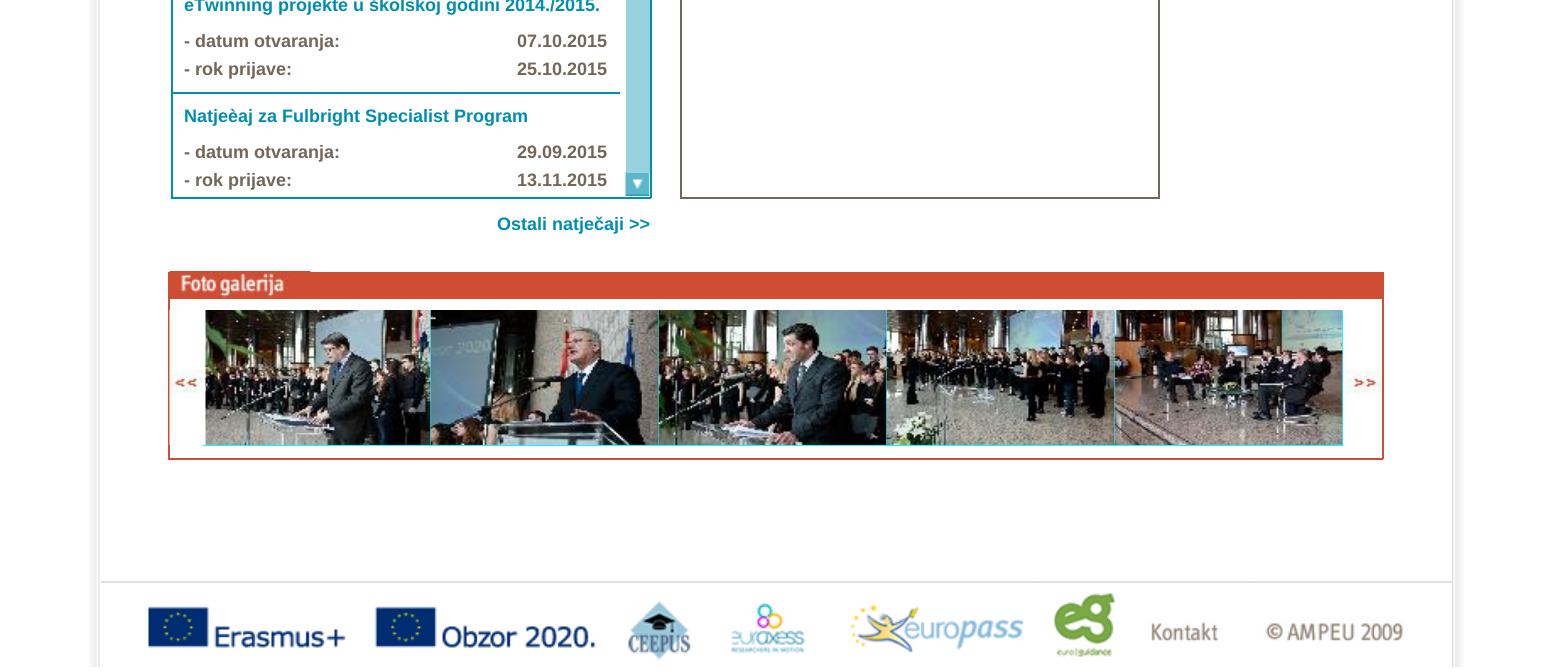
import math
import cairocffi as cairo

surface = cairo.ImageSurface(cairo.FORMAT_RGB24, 1550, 671)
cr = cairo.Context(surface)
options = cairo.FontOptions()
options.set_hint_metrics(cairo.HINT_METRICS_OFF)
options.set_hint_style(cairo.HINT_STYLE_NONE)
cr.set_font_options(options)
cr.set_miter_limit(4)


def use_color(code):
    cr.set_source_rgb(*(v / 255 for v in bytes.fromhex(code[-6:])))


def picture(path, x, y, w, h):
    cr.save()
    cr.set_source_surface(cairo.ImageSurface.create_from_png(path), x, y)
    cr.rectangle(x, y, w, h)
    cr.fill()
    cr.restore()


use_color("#ffffff")
cr.paint()
picture("img1.png", 89, 0, 11, 667)
use_color("#008eb0")
cr.rectangle(650, 0, 2, 198)
cr.fill()
cr.rectangle(171, 197, 480, 2)
cr.fill()
cr.rectangle(171, 0, 2, 198)
cr.fill()
cr.select_font_face("Liberation Sans", cairo.FONT_SLANT_NORMAL, cairo.FONT_WEIGHT_BOLD)
cr.set_font_size(18)
cr.move_to(184, 11)
cr.show_text("eTwinning projekte u školskoj godini 2014./2015.")
use_color("#746659")
cr.move_to(184, 47)
cr.show_text("- datum otvaranja:")
cr.move_to(517, 47)
cr.show_text("07.10.2015")
cr.move_to(184, 75)
cr.show_text("- rok prijave:")
cr.move_to(517, 75)
cr.show_text("25.10.2015")
use_color("#008eb0")
cr.rectangle(173, 92, 447, 2)
cr.fill()
cr.move_to(184, 122)
cr.show_text("Natjeèaj za Fulbright Specialist Program")
use_color("#746659")
cr.move_to(184, 158)
cr.show_text("- datum otvaranja:")
cr.move_to(517, 158)
cr.show_text("29.09.2015")
cr.move_to(184, 186)
cr.show_text("- rok prijave:")
cr.move_to(517, 186)
cr.show_text("13.11.2015")
picture("img2.png", 625, 172, 25, 24)
use_color("#99d2df")
cr.rectangle(626, 0, 24, 173)
cr.fill()
use_color("#008eb0")
cr.move_to(497, 230)
cr.show_text("Ostali natječaji >>")
use_color("#746659")
cr.rectangle(1158, 0, 2, 198)
cr.fill()
cr.rectangle(680, 197, 480, 2)
cr.fill()
cr.rectangle(680, 0, 2, 198)
cr.fill()
use_color("#cf4d33")
cr.rectangle(1382, 272, 2, 187)
cr.fill()
cr.rectangle(168, 458, 1215, 2)
cr.fill()
cr.rectangle(168, 272, 2, 187)
cr.fill()
cr.rectangle(170, 272, 1212, 27)
cr.fill()
picture("img3.png", 169, 271, 142, 27)
use_color("#00ffff")
cr.rectangle(203, 311, 1140, 135)
cr.fill()
picture("img5.png", 205, 310, 226, 135)
picture("img4.png", 169, 310, 37, 135)
picture("img6.png", 430, 310, 229, 135)
picture("img7.png", 658, 310, 229, 135)
picture("img8.png", 886, 310, 229, 135)
picture("img9.png", 1114, 310, 229, 135)
picture("img10.png", 1345, 370, 37, 24)
use_color("#e0e1e2")
cr.rectangle(101, 581, 1351, 3)
cr.fill()
picture("img11.png", 101, 583, 256, 65)
picture("img12.png", 357, 583, 252, 65)
picture("img13.png", 609, 583, 105, 77)
picture("img14.png", 714, 583, 114, 71)
picture("img15.png", 828, 583, 212, 70)
picture("img16.png", 1039, 583, 89, 74)
picture("img17.png", 1128, 583, 122, 59)
picture("img18.png", 1249, 583, 203, 59)
picture("img19.png", 1452, 0, 12, 667)
surface.write_to_png("result.png")
